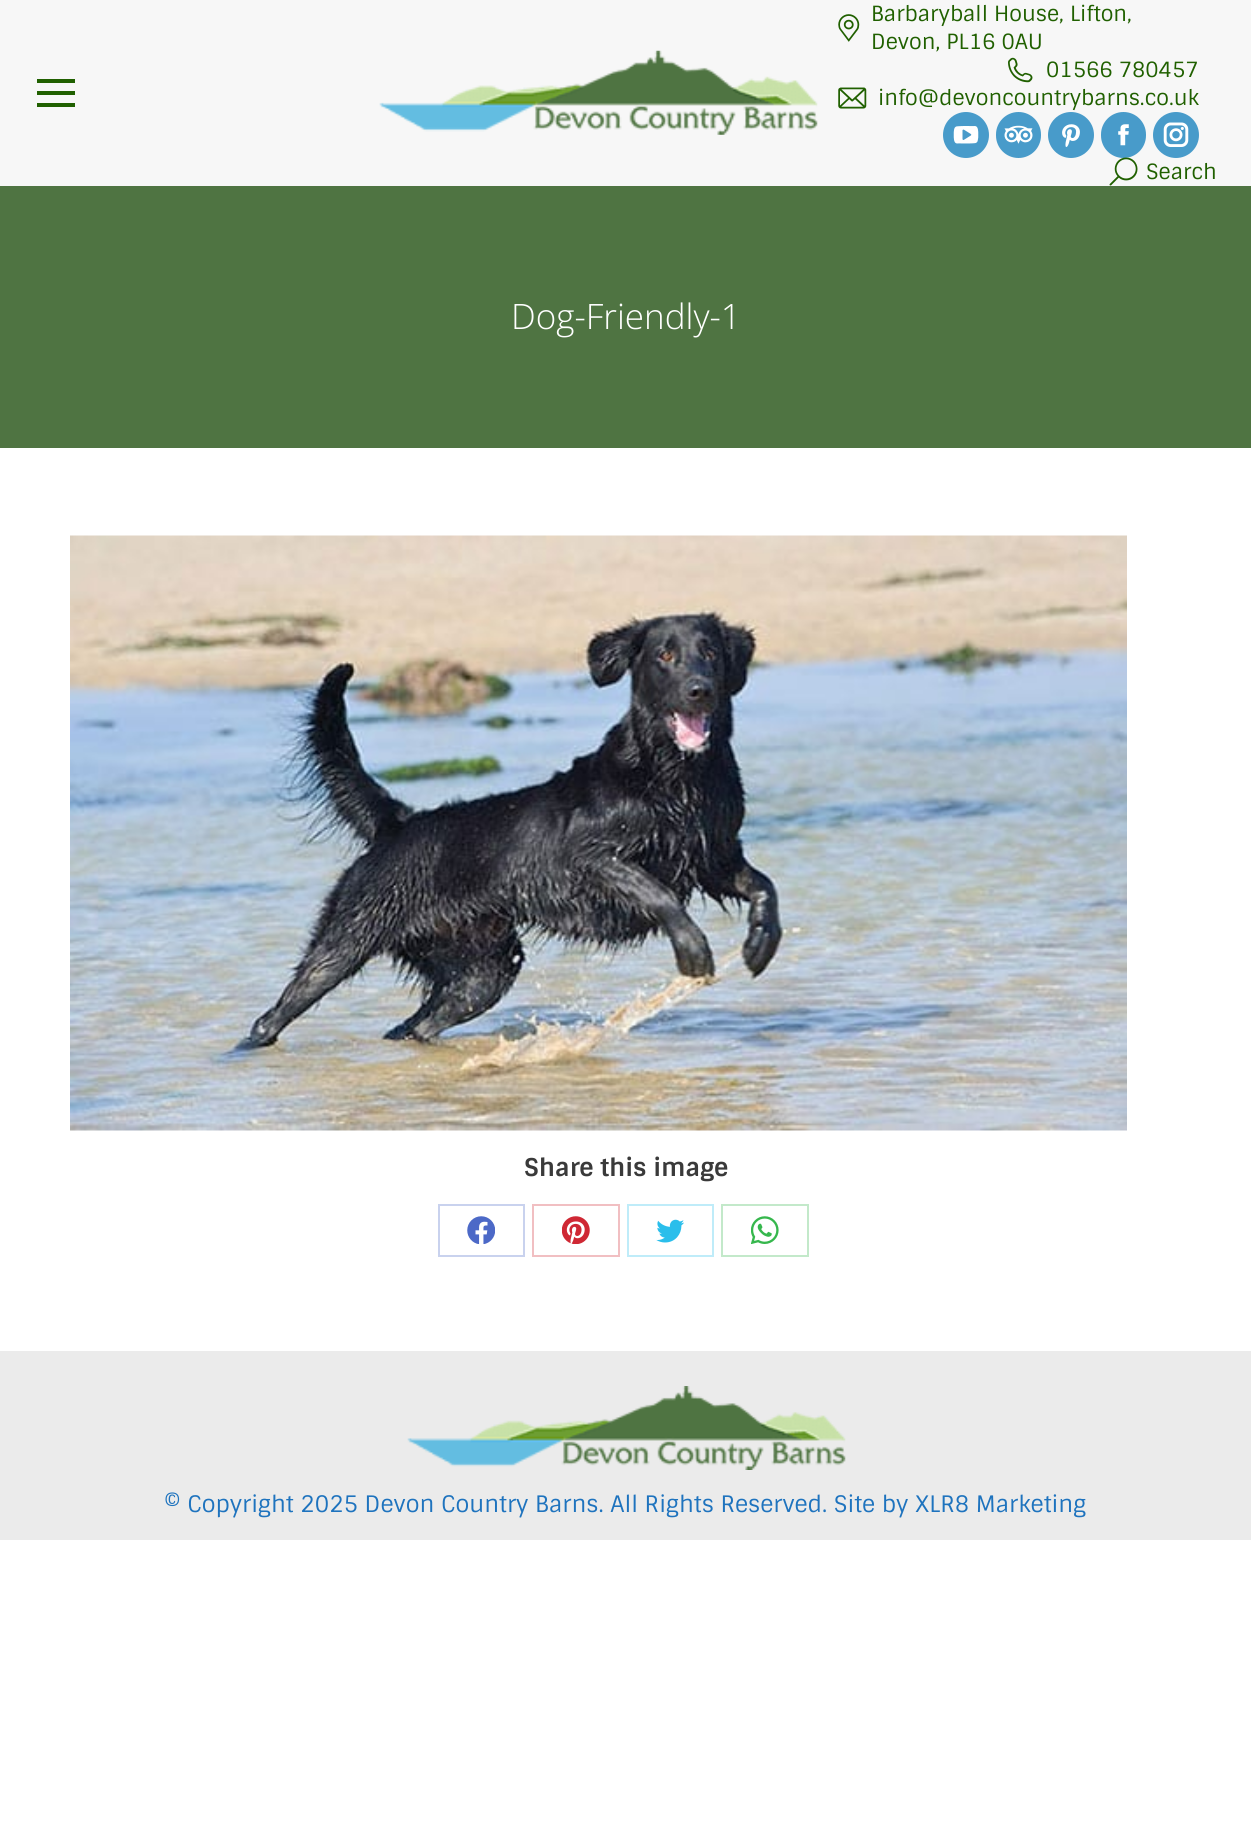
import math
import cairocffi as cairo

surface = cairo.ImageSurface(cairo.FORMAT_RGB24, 1251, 1825)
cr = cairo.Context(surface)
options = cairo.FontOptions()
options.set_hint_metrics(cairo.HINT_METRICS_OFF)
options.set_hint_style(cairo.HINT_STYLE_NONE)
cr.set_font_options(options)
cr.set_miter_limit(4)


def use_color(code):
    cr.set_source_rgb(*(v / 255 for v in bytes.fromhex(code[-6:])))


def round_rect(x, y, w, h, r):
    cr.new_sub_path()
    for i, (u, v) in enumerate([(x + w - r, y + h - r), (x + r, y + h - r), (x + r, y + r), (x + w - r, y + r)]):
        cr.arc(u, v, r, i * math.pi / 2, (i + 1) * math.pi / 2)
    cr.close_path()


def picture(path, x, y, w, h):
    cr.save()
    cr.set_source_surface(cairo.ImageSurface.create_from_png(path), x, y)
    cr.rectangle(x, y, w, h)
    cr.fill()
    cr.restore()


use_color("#ffffff")
cr.paint()
cr.set_source_rgba(0.957, 0.957, 0.957, 0.75)
cr.rectangle(0, 0, 1251, 186)
cr.fill()
use_color("#206000")
cr.rectangle(37, 79, 38, 4)
cr.fill()
cr.rectangle(37, 91, 38, 4)
cr.fill()
cr.rectangle(37, 103, 38, 4)
cr.fill()
picture("img1.png", 379, 50, 439, 85)
picture("img2.png", 838, 14, 22, 28)
cr.select_font_face("Sintony")
cr.set_font_size(21)
cr.move_to(871, 21)
cr.show_text("Barbaryball House, Lifton,")
cr.move_to(871, 49)
cr.show_text("Devon, PL16 0AU")
picture("img3.png", 1008, 57, 25, 26)
cr.move_to(1046, 77)
cr.show_text("01566 780457")
picture("img4.png", 838, 87, 29, 22)
cr.move_to(878, 105)
cr.show_text("info@devoncountrybarns.co.uk")
use_color("#489bca")
cr.new_path()
cr.arc(966, 135, 23, 0, 2 * math.pi)
cr.fill()
picture("img5.png", 953, 126, 26, 18)
round_rect(996, 112, 45, 46, 22.5)
cr.fill()
picture("img6.png", 1004, 125, 29, 19)
cr.arc(1071, 135, 23, 0, 2 * math.pi)
cr.fill()
picture("img7.png", 1062, 124, 18, 23)
round_rect(1101, 112, 45, 46, 22.5)
cr.fill()
picture("img8.png", 1118, 124, 11, 22)
cr.arc(1176, 135, 23, 0, 2 * math.pi)
cr.fill()
picture("img9.png", 1163, 122, 26, 25)
picture("img10.png", 1109, 157, 29, 29)
use_color("#206000")
cr.move_to(1146, 179)
cr.show_text("Search")
use_color("#4f7442")
cr.rectangle(0, 186, 1251, 262)
cr.fill()
cr.select_font_face("Open Sans Light")
cr.set_font_size(35)
use_color("#ffffff")
cr.move_to(511, 329)
cr.show_text("Dog-Friendly-1")
picture("img11.png", 70, 535, 1057, 596)
cr.select_font_face("Sintony", cairo.FONT_SLANT_NORMAL, cairo.FONT_WEIGHT_BOLD)
cr.set_font_size(24.5)
use_color("#3a3a3a")
cr.move_to(524, 1176)
cr.show_text("Share this image")
cr.rectangle(439, 1205, 85, 51)
use_color("#c9d2ee")
cr.stroke()
picture("img12.png", 467, 1216, 28, 28)
cr.rectangle(533, 1205, 86, 51)
use_color("#f1bfc2")
cr.stroke()
picture("img13.png", 562, 1216, 28, 28)
cr.rectangle(628, 1205, 85, 51)
use_color("#bfecf9")
cr.stroke()
picture("img14.png", 656, 1219, 28, 24)
cr.rectangle(722, 1205, 86, 51)
use_color("#c3e9ca")
cr.stroke()
picture("img15.png", 751, 1216, 28, 28)
use_color("#ebebeb")
cr.rectangle(0, 1351, 1251, 189)
cr.fill()
picture("img16.png", 407, 1386, 439, 84)
cr.select_font_face("Sintony")
cr.set_font_size(22.75)
use_color("#1e73be")
cr.move_to(164, 1512)
cr.show_text("© Copyright 2025 Devon Country Barns. All Rights Reserved. Site by XLR8 Marketing")
surface.write_to_png("result.png")
